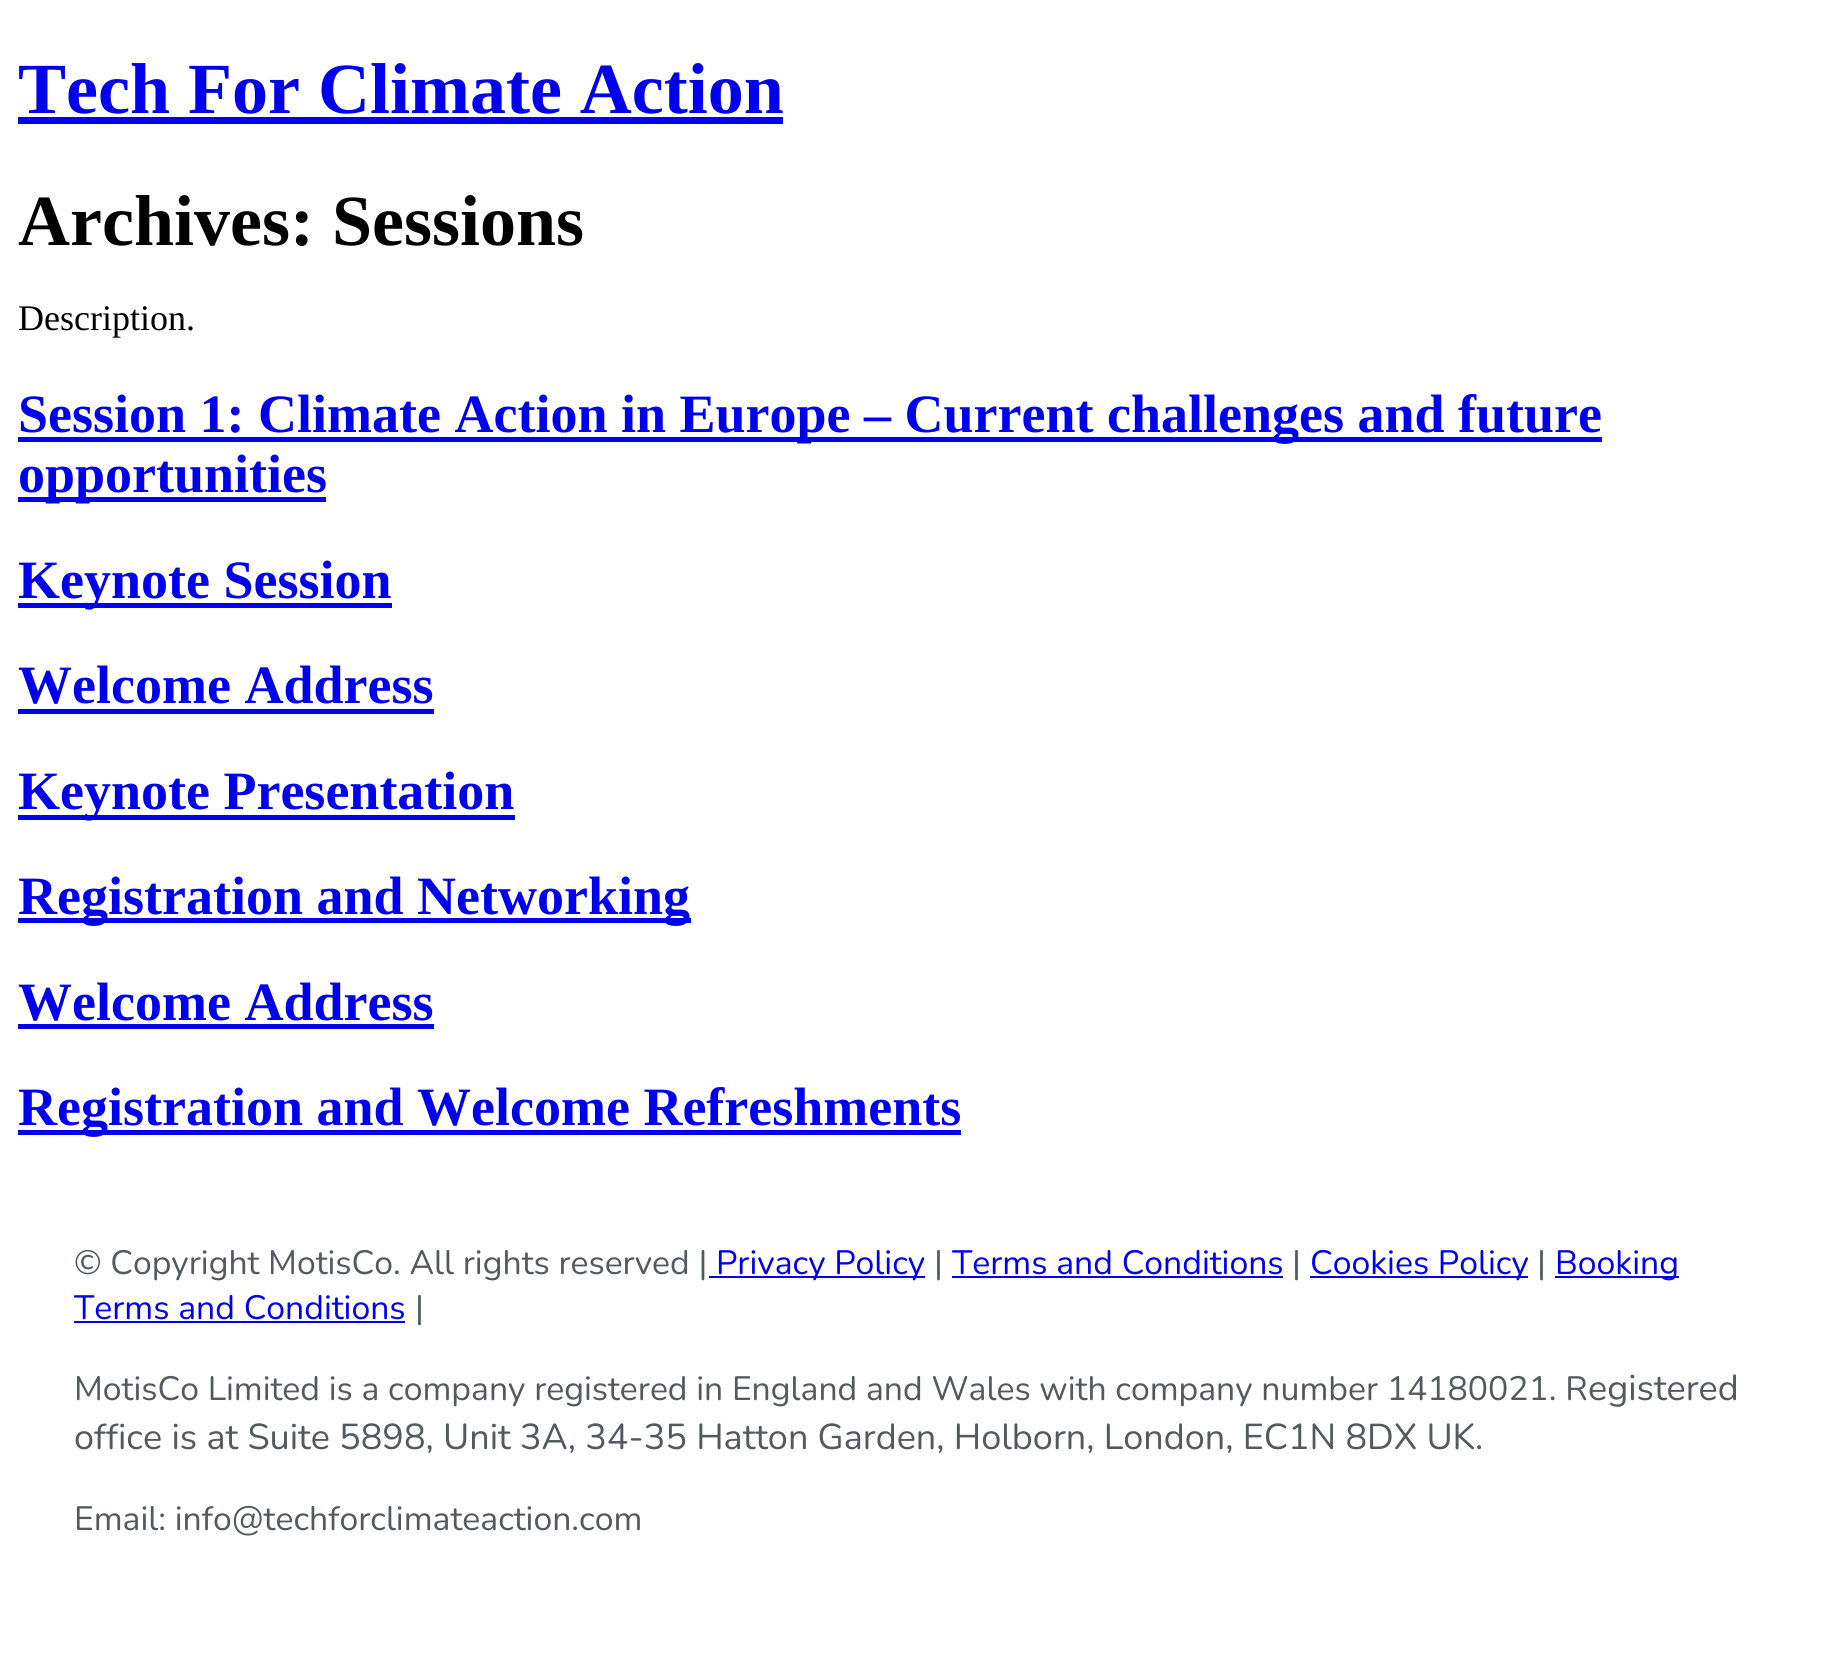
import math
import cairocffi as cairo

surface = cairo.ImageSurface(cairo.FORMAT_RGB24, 1823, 1658)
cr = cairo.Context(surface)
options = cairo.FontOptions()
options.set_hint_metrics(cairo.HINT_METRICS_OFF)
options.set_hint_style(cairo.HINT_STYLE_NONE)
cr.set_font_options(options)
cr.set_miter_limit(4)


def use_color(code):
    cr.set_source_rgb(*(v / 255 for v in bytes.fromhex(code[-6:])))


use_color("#ffffff")
cr.paint()
cr.select_font_face("Liberation Serif", cairo.FONT_SLANT_NORMAL, cairo.FONT_WEIGHT_BOLD)
cr.set_font_size(72)
use_color("#0000ee")
cr.move_to(18, 113)
cr.show_text("Tech For Climate Action")
cr.rectangle(18, 117, 765, 7)
cr.fill()
use_color("#000000")
cr.move_to(18, 245)
cr.show_text("Archives: Sessions")
cr.select_font_face("Liberation Serif")
cr.set_font_size(36)
cr.move_to(18, 330)
cr.show_text("Description.")
use_color("#0000ee")
cr.rectangle(18, 437, 1584, 5)
cr.fill()
cr.select_font_face("Liberation Serif", cairo.FONT_SLANT_NORMAL, cairo.FONT_WEIGHT_BOLD)
cr.set_font_size(54)
cr.move_to(18, 432)
cr.show_text("Session 1: Climate Action in Europe – Current challenges and future")
cr.rectangle(18, 497, 308, 5)
cr.fill()
cr.move_to(18, 492)
cr.show_text("opportunities")
cr.rectangle(18, 603, 374, 5)
cr.fill()
cr.move_to(18, 598)
cr.show_text("Keynote Session")
cr.move_to(18, 703)
cr.show_text("Welcome Address")
cr.rectangle(18, 709, 416, 5)
cr.fill()
cr.rectangle(18, 815, 497, 5)
cr.fill()
cr.move_to(18, 809)
cr.show_text("Keynote Presentation")
cr.rectangle(18, 918, 673, 5)
cr.fill()
cr.move_to(18, 914)
cr.show_text("Registration and Networking")
cr.move_to(18, 1020)
cr.show_text("Welcome Address")
cr.rectangle(18, 1024, 416, 5)
cr.fill()
cr.rectangle(18, 1130, 943, 5)
cr.fill()
cr.move_to(18, 1125)
cr.show_text("Registration and Welcome Refreshments")
cr.select_font_face("Nunito")
cr.set_font_size(33.75)
use_color("#54595f")
cr.move_to(74, 1274)
cr.show_text("© Copyright MotisCo. All rights reserved |")
use_color("#0000ee")
cr.rectangle(709, 1276, 216, 2)
cr.fill()
cr.move_to(716, 1274)
cr.show_text("Privacy Policy")
use_color("#54595f")
cr.move_to(934, 1274)
cr.show_text("|")
use_color("#0000ee")
cr.move_to(952, 1274)
cr.show_text("Terms and Conditions")
cr.rectangle(952, 1276, 331, 2)
cr.fill()
use_color("#54595f")
cr.move_to(1292, 1274)
cr.show_text("|")
use_color("#0000ee")
cr.rectangle(1310, 1276, 218, 2)
cr.fill()
cr.move_to(1310, 1274)
cr.show_text("Cookies Policy")
use_color("#54595f")
cr.move_to(1537, 1274)
cr.show_text("|")
use_color("#0000ee")
cr.rectangle(1555, 1276, 124, 2)
cr.fill()
cr.move_to(1555, 1274)
cr.show_text("Booking")
cr.move_to(74, 1319)
cr.show_text("Terms and Conditions")
cr.rectangle(74, 1321, 331, 2)
cr.fill()
use_color("#54595f")
cr.move_to(415, 1319)
cr.show_text("|")
cr.move_to(74, 1400)
cr.show_text("MotisCo Limited is a company registered in England and Wales with company number 14180021. R")
cr.set_font_size(36)
cr.move_to(1588, 1400)
cr.show_text("egistered")
cr.move_to(74, 1449)
cr.show_text("office is at Suite 5898, Unit 3A, 34-35 Hatton Garden, Holborn, London, EC1N 8DX UK.")
cr.set_font_size(33.75)
cr.move_to(74, 1530)
cr.show_text("Email: info@techforclimateaction.com")
surface.write_to_png("result.png")
